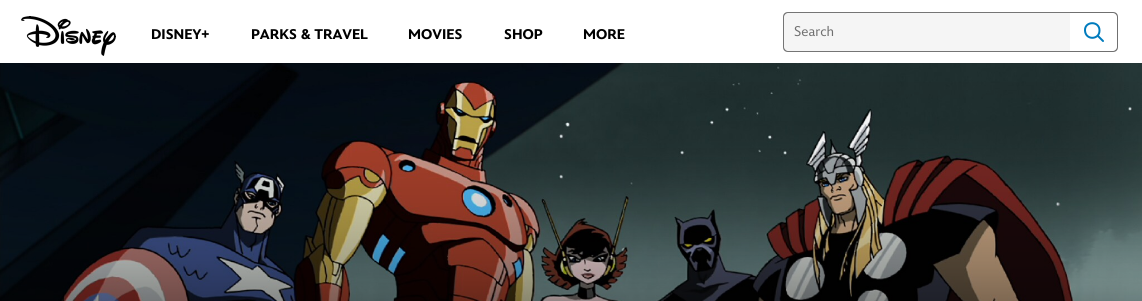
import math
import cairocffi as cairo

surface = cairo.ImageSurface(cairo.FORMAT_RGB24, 1142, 301)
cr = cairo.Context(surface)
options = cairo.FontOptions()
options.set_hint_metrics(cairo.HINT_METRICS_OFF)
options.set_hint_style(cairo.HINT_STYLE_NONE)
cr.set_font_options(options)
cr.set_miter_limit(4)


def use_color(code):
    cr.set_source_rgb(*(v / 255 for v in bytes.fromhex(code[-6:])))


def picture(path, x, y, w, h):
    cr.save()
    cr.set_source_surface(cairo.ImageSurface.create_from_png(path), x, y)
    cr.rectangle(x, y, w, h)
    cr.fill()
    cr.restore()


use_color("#ffffff")
cr.paint()
picture("img1.png", 21, 16, 95, 40)
cr.select_font_face("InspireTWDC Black")
cr.set_font_size(14)
use_color("#000000")
cr.move_to(151, 39)
cr.show_text("DISNEY+")
cr.move_to(251, 39)
cr.show_text("PARKS & TRAVEL")
cr.move_to(408, 39)
cr.show_text("MOVIES")
cr.move_to(504, 39)
cr.show_text("SHOP")
cr.move_to(583, 39)
cr.show_text("MORE")
use_color("#f5f5f5")
cr.new_path()
cr.move_to(788, 12)
cr.line_to(1070, 12)
cr.line_to(1070, 52)
cr.line_to(788, 52)
cr.curve_to(785, 52, 783, 50, 783, 47)
cr.line_to(783, 17)
cr.curve_to(783, 14, 785, 12, 788, 12)
cr.close_path()
cr.fill()
use_color("#757575")
cr.set_fill_rule(cairo.FILL_RULE_EVEN_ODD)
cr.new_path()
cr.move_to(788, 12)
cr.line_to(1070, 12)
cr.line_to(1070, 52)
cr.line_to(788, 52)
cr.curve_to(785, 52, 783, 50, 783, 47)
cr.line_to(783, 17)
cr.curve_to(783, 14, 785, 12, 788, 12)
cr.close_path()
cr.move_to(788, 13)
cr.line_to(1070, 13)
cr.line_to(1070, 51)
cr.line_to(788, 51)
cr.curve_to(786, 51, 784, 49, 784, 47)
cr.line_to(784, 17)
cr.curve_to(784, 15, 786, 13, 788, 13)
cr.close_path()
cr.fill()
cr.select_font_face("InspireTWDC")
use_color("#707070")
cr.move_to(794, 36)
cr.show_text("Search")
cr.new_path()
cr.move_to(1070, 12)
cr.line_to(1113, 12)
cr.curve_to(1116, 12, 1118, 14, 1118, 17)
cr.line_to(1118, 47)
cr.curve_to(1118, 50, 1116, 52, 1113, 52)
cr.line_to(1070, 52)
cr.close_path()
cr.move_to(1070, 13)
cr.line_to(1113, 13)
cr.curve_to(1115, 13, 1117, 15, 1117, 17)
cr.line_to(1117, 47)
cr.curve_to(1117, 49, 1115, 51, 1113, 51)
cr.line_to(1070, 51)
cr.close_path()
cr.fill()
cr.new_path()
cr.move_to(1099.5, 30.5)
cr.curve_to(1099.5, 20.5, 1084.5, 21, 1085, 30.5)
cr.curve_to(1085.5, 40.5, 1099.5, 40, 1099.5, 30.5)
cr.close_path()
cr.move_to(1098, 36)
cr.line_to(1103, 41)
cr.close_path()
use_color("#007bbd")
cr.set_line_cap(cairo.LINE_CAP_ROUND)
cr.set_line_join(cairo.LINE_JOIN_ROUND)
cr.stroke()
picture("img2.png", 0, 63, 1142, 238)
surface.write_to_png("result.png")
